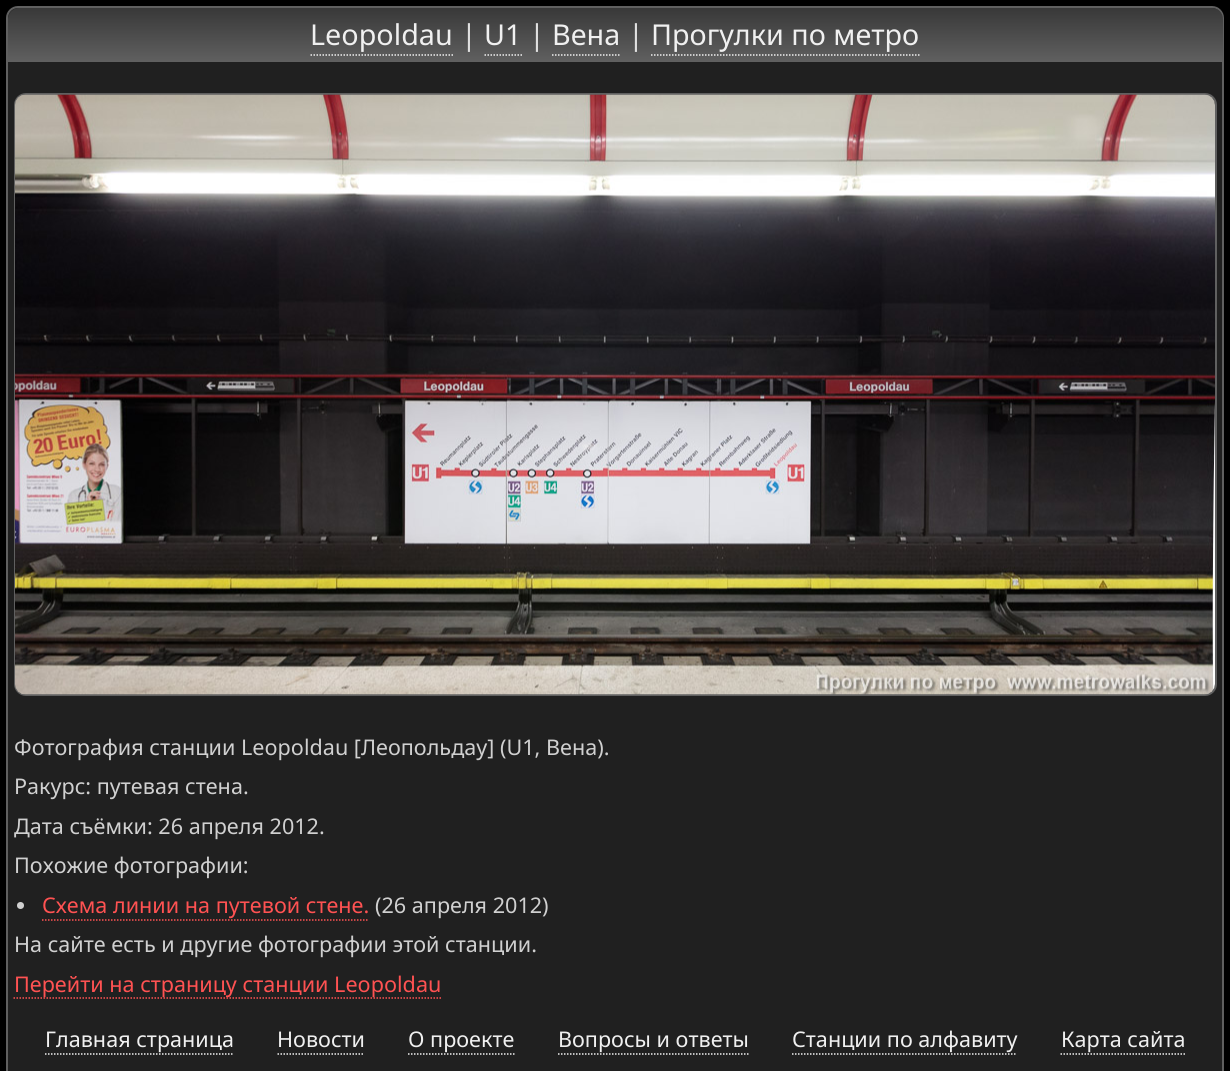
import math
import cairocffi as cairo

surface = cairo.ImageSurface(cairo.FORMAT_RGB24, 1230, 1071)
cr = cairo.Context(surface)
options = cairo.FontOptions()
options.set_hint_metrics(cairo.HINT_METRICS_OFF)
options.set_hint_style(cairo.HINT_STYLE_NONE)
cr.set_font_options(options)
cr.set_miter_limit(4)


def use_color(code):
    cr.set_source_rgb(*(v / 255 for v in bytes.fromhex(code[-6:])))


def round_rect(x, y, w, h, r):
    cr.new_sub_path()
    for i, (u, v) in enumerate([(x + w - r, y + h - r), (x + r, y + h - r), (x + r, y + r), (x + w - r, y + r)]):
        cr.arc(u, v, r, i * math.pi / 2, (i + 1) * math.pi / 2)
    cr.close_path()


def picture(path, x, y, w, h):
    cr.save()
    cr.set_source_surface(cairo.ImageSurface.create_from_png(path), x, y)
    cr.rectangle(x, y, w, h)
    cr.fill()
    cr.restore()


use_color("#000000")
cr.paint()
use_color("#202020")
round_rect(7, 7, 1216, 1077, 11)
cr.fill_preserve()
use_color("#606060")
cr.stroke()
gradient = cairo.LinearGradient(615, 7.5, 615, 62)
gradient.add_color_stop_rgba(0, 0.22, 0.22, 0.22, 1)
gradient.add_color_stop_rgba(1, 0.376, 0.376, 0.376, 1)
cr.set_source(gradient)
cr.new_path()
cr.move_to(19, 8)
cr.line_to(1212, 8)
cr.curve_to(1218, 8, 1223, 13, 1223, 19)
cr.line_to(1223, 62)
cr.line_to(8, 62)
cr.line_to(8, 19)
cr.curve_to(8, 13, 13, 8, 19, 8)
cr.close_path()
cr.fill()
cr.select_font_face("Noto Sans")
cr.set_font_size(28.75)
use_color("#f0f0f0")
cr.move_to(310, 45)
cr.show_text("Leopoldau")
cr.new_path()
cr.move_to(310.5, 55)
cr.line_to(453, 55)
cr.set_line_width(1.5)
cr.set_dash([1.5, 1.5])
cr.stroke()
use_color("#e0e0e0")
cr.move_to(461, 45)
cr.show_text("|")
use_color("#f0f0f0")
cr.move_to(484, 45)
cr.show_text("U1")
cr.new_path()
cr.move_to(484.5, 55)
cr.line_to(522, 55)
cr.stroke()
use_color("#e0e0e0")
cr.move_to(529, 45)
cr.show_text("|")
use_color("#f0f0f0")
cr.move_to(552, 45)
cr.show_text("Вена")
cr.new_path()
cr.move_to(552, 55)
cr.line_to(621, 55)
cr.stroke()
use_color("#e0e0e0")
cr.move_to(628, 45)
cr.show_text("|")
use_color("#f0f0f0")
cr.move_to(651, 45)
cr.show_text("Прогулки по метро")
cr.new_path()
cr.move_to(651, 55)
cr.line_to(919.5, 55)
cr.stroke()
round_rect(15, 94, 1201, 601, 11)
use_color("#606060")
cr.set_line_width(2)
cr.set_dash([])
cr.stroke()
picture("img1.png", 15, 94, 1200, 601)
cr.set_font_size(21.6)
use_color("#d0d0d0")
cr.move_to(14, 755)
cr.show_text("Фотография станции Leopoldau [Леопольдау] (U1, Вена).")
cr.move_to(14, 794)
cr.show_text("Ракурс: путевая стена.")
cr.move_to(14, 834)
cr.show_text("Дата съёмки: 26 апреля 2012.")
cr.move_to(14, 873)
cr.show_text("Похожие фотографии:")
cr.new_path()
cr.arc(20.5, 905.5, 3.5, 0, 2 * math.pi)
cr.fill()
use_color("#ff5252")
cr.move_to(42, 913)
cr.show_text("Схема линии на путевой стене.")
cr.new_path()
cr.move_to(42, 920)
cr.line_to(369, 920)
cr.set_line_width(1.5)
cr.set_dash([1.5, 1.5])
cr.stroke()
use_color("#d0d0d0")
cr.move_to(375, 913)
cr.show_text("(26 апреля 2012)")
cr.move_to(14, 952)
cr.show_text("На сайте есть и другие фотографии этой станции.")
cr.new_path()
cr.move_to(13.5, 998)
cr.line_to(441, 998)
use_color("#ff5252")
cr.stroke()
cr.move_to(14, 992)
cr.show_text("Перейти на страницу станции Leopoldau")
use_color("#f0f0f0")
cr.move_to(45, 1047)
cr.show_text("Главная страница")
cr.new_path()
cr.move_to(45, 1054)
cr.line_to(234, 1054)
cr.stroke()
cr.move_to(277, 1047)
cr.show_text("Новости")
cr.new_path()
cr.move_to(277.5, 1054)
cr.line_to(364.5, 1054)
cr.stroke()
cr.move_to(408, 1047)
cr.show_text("О проекте")
cr.new_path()
cr.move_to(408, 1054)
cr.line_to(514.5, 1054)
cr.stroke()
cr.move_to(558, 1047)
cr.show_text("Вопросы и ответы")
cr.new_path()
cr.move_to(558, 1054)
cr.line_to(748.5, 1054)
cr.stroke()
cr.move_to(792, 1047)
cr.show_text("Станции по алфавиту")
cr.new_path()
cr.move_to(792, 1054)
cr.line_to(1017, 1054)
cr.stroke()
cr.move_to(1061, 1047)
cr.show_text("Карта сайта")
cr.new_path()
cr.move_to(1060.5, 1054)
cr.line_to(1185, 1054)
cr.stroke()
surface.write_to_png("result.png")
